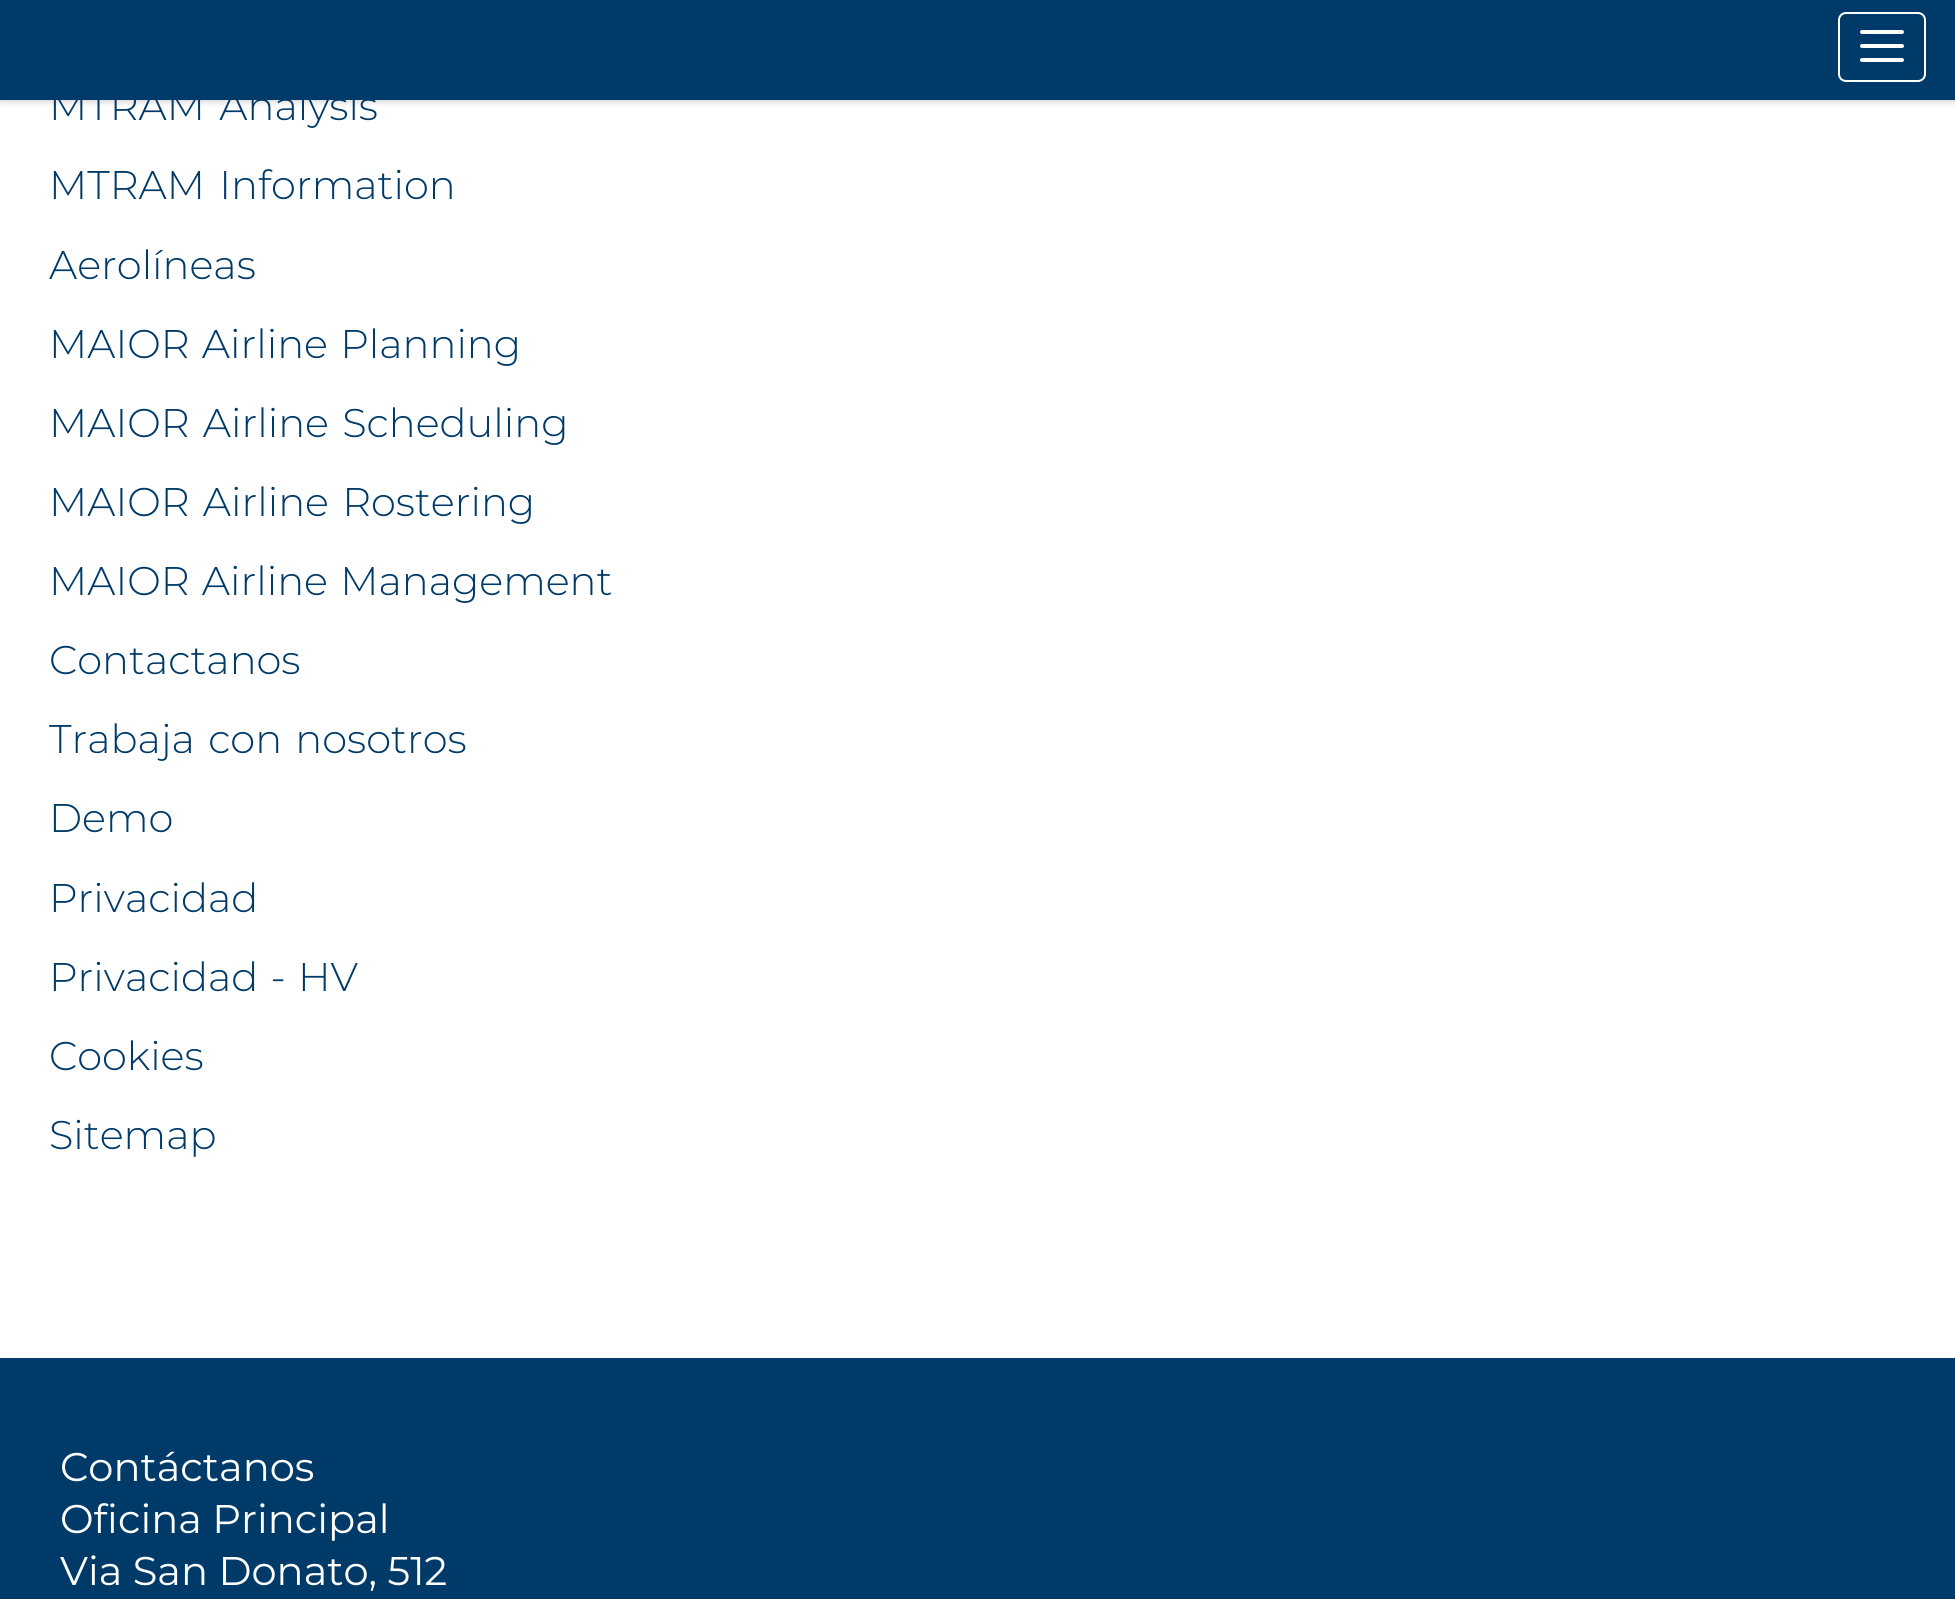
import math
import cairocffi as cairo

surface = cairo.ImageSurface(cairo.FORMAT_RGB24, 1955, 1599)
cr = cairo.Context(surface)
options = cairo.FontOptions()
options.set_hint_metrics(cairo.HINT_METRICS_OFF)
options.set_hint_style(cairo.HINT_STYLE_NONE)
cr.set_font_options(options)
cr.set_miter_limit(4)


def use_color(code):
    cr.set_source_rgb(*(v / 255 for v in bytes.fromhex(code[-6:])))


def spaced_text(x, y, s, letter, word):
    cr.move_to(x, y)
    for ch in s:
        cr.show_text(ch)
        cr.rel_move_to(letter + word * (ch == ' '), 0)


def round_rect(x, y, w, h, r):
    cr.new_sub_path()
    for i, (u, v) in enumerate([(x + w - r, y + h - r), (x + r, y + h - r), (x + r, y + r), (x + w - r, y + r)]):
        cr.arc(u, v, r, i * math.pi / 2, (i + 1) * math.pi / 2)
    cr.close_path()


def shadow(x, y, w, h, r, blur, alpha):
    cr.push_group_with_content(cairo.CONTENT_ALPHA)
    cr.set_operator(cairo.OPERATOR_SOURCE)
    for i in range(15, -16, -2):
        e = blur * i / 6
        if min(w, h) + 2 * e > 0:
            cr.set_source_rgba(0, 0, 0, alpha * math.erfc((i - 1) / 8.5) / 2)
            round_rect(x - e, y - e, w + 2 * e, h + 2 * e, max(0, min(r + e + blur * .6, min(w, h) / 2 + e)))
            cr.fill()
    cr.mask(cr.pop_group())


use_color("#ffffff")
cr.paint()
use_color("#000000")
shadow(0, 2, 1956, 100, 0, 3, 0.17)
use_color("#003a69")
cr.rectangle(0, 0, 1955, 100)
cr.fill()
round_rect(1839, 13, 86, 68, 7)
use_color("#ffffff")
cr.stroke()
round_rect(1860, 30, 44, 4, 2)
cr.fill()
round_rect(1860, 44, 44, 4, 2)
cr.fill()
round_rect(1860, 58, 44, 4, 2)
cr.fill()
cr.select_font_face("Montserrat Light")
cr.set_font_size(40)
use_color("#003a69")
spaced_text(49, 120, "MTRAM Analysis", 0, 4)
spaced_text(49, 199, "MTRAM Information", 0, 4)
cr.move_to(49, 279)
cr.show_text("Aerolíneas")
spaced_text(49, 358, "MAIOR Airline Planning", 0, 2)
spaced_text(49, 437, "MAIOR Airline Scheduling", 0, 3)
spaced_text(49, 516, "MAIOR Airline Rostering", 0, 3)
spaced_text(49, 595, "MAIOR Airline Management", 0, 2)
cr.move_to(49, 674)
cr.show_text("Contactanos")
spaced_text(49, 753, "Trabaja con nosotros", 0, 3)
cr.move_to(49, 832)
cr.show_text("Demo")
cr.move_to(49, 912)
cr.show_text("Privacidad")
spaced_text(49, 991, "Privacidad - HV", 0, 2)
cr.move_to(49, 1070)
cr.show_text("Cookies")
cr.move_to(49, 1149)
cr.show_text("Sitemap")
cr.rectangle(0, 1358, 1955, 241)
cr.fill()
cr.select_font_face("Montserrat")
use_color("#ffffff")
cr.move_to(60, 1481)
cr.show_text("Contáctanos")
cr.move_to(60, 1533)
cr.show_text("Oficina Principal")
cr.move_to(60, 1585)
cr.show_text("Via San Donato, 512")
surface.write_to_png("result.png")
